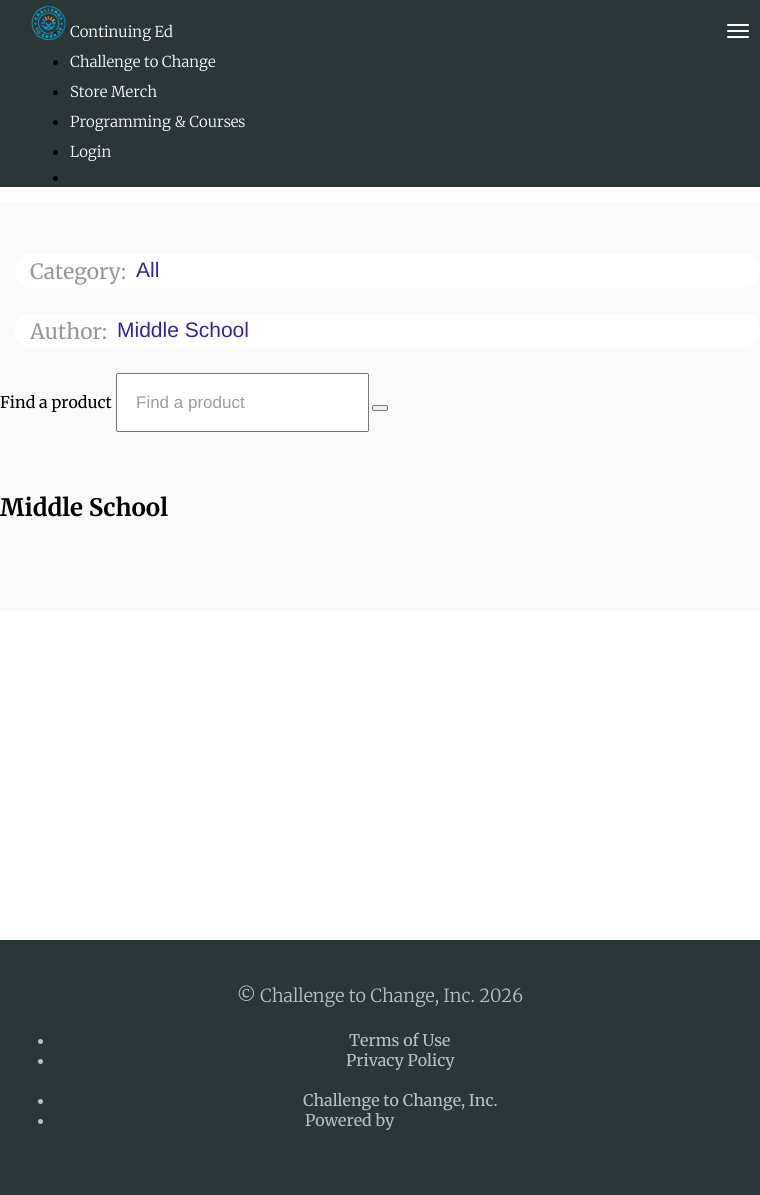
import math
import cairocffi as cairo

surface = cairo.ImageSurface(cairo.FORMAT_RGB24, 760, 1195)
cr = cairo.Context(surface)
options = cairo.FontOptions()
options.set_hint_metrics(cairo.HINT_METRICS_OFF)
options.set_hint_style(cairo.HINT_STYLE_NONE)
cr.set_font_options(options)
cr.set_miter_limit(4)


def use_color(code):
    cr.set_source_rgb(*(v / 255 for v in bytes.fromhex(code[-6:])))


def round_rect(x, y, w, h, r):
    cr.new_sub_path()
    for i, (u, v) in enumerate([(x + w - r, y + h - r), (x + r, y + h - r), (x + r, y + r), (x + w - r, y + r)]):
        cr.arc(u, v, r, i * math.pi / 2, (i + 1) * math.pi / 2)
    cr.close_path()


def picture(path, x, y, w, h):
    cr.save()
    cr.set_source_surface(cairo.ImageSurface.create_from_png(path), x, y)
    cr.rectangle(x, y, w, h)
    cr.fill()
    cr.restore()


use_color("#ffffff")
cr.paint()
use_color("#2b3636")
cr.rectangle(0, 0, 760, 187)
cr.fill()
use_color("#000000")
cr.arc(55.5, 32.5, 2.5, 0, 2 * math.pi)
cr.fill()
picture("img1.png", 31, 5, 35, 36)
cr.select_font_face("Merriweather Light")
cr.set_font_size(15)
use_color("#ffffff")
cr.move_to(70, 37)
cr.show_text("Continuing Ed")
use_color("#000000")
cr.new_path()
cr.arc(55.5, 62.5, 2.5, 0, 2 * math.pi)
cr.fill()
use_color("#ffffff")
cr.move_to(70, 67)
cr.show_text("Challenge to Change")
use_color("#000000")
cr.new_path()
cr.arc(55.5, 92.5, 2.5, 0, 2 * math.pi)
cr.fill()
use_color("#ffffff")
cr.move_to(70, 97)
cr.show_text("Store Merch")
use_color("#000000")
cr.new_path()
cr.arc(55.5, 122.5, 2.5, 0, 2 * math.pi)
cr.fill()
use_color("#ffffff")
cr.move_to(70, 127)
cr.show_text("Programming & Courses")
use_color("#000000")
cr.new_path()
cr.arc(55.5, 152.5, 2.5, 0, 2 * math.pi)
cr.fill()
use_color("#ffffff")
cr.move_to(70, 157)
cr.show_text("Login")
use_color("#000000")
cr.new_path()
cr.arc(55.5, 178.5, 2.5, 0, 2 * math.pi)
cr.fill()
use_color("#ffffff")
round_rect(727, 24, 22, 2, 1)
cr.fill()
round_rect(727, 30, 22, 2, 1)
cr.fill()
round_rect(727, 36, 22, 2, 1)
cr.fill()
use_color("#fafafa")
cr.rectangle(0, 203, 760, 408)
cr.fill()
use_color("#ffffff")
round_rect(15, 253, 745, 35, 17.5)
cr.fill()
cr.select_font_face("Merriweather")
cr.set_font_size(21)
use_color("#989898")
cr.move_to(30, 279)
cr.show_text("Category:")
cr.select_font_face("Liberation Sans")
use_color("#2f22ac")
cr.move_to(136, 277)
cr.show_text("All")
use_color("#ffffff")
round_rect(15, 313, 745, 35, 17.5)
cr.fill()
cr.select_font_face("Merriweather")
use_color("#989898")
cr.move_to(30, 339)
cr.show_text("Author:")
cr.select_font_face("Liberation Sans")
use_color("#2f22ac")
cr.move_to(117, 337)
cr.show_text("Middle School")
cr.select_font_face("Merriweather")
cr.set_font_size(16)
use_color("#000000")
cr.move_to(0, 408)
cr.show_text("Find a product")
use_color("#ffffff")
round_rect(116.5, 373.5, 252, 58, 1.5)
cr.fill_preserve()
use_color("#767676")
cr.set_line_width(1)
cr.stroke()
cr.select_font_face("Liberation Sans")
cr.set_font_size(17)
use_color("#9e9e9e")
cr.move_to(136, 408)
cr.show_text("Find a product")
use_color("#efefef")
round_rect(372.5, 405.5, 15, 5, 1.5)
cr.fill_preserve()
use_color("#767676")
cr.stroke()
cr.select_font_face("Merriweather", cairo.FONT_SLANT_NORMAL, cairo.FONT_WEIGHT_BOLD)
cr.set_font_size(24)
use_color("#000000")
cr.move_to(0, 516)
cr.show_text("Middle School")
use_color("#2b3636")
cr.rectangle(0, 940, 760, 255)
cr.fill()
cr.select_font_face("Merriweather Light")
cr.set_font_size(18)
use_color("#bac1c7")
cr.move_to(237, 1002)
cr.show_text("© Challenge to Change, Inc. 2026")
cr.new_path()
cr.arc(40.5, 1041.5, 2.5, 0, 2 * math.pi)
cr.fill()
cr.select_font_face("Merriweather")
cr.set_font_size(16)
cr.move_to(349, 1046)
cr.show_text("Terms of Use")
cr.new_path()
cr.arc(40.5, 1061.5, 2.5, 0, 2 * math.pi)
cr.fill()
cr.move_to(346, 1066)
cr.show_text("Privacy Policy")
cr.new_path()
cr.arc(40.5, 1101.5, 2.5, 0, 2 * math.pi)
cr.fill()
cr.move_to(303, 1106)
cr.show_text("Challenge to Change, Inc.")
cr.new_path()
cr.arc(40.5, 1121.5, 2.5, 0, 2 * math.pi)
cr.fill()
cr.move_to(305, 1126)
cr.show_text("Powered by")
surface.write_to_png("result.png")
